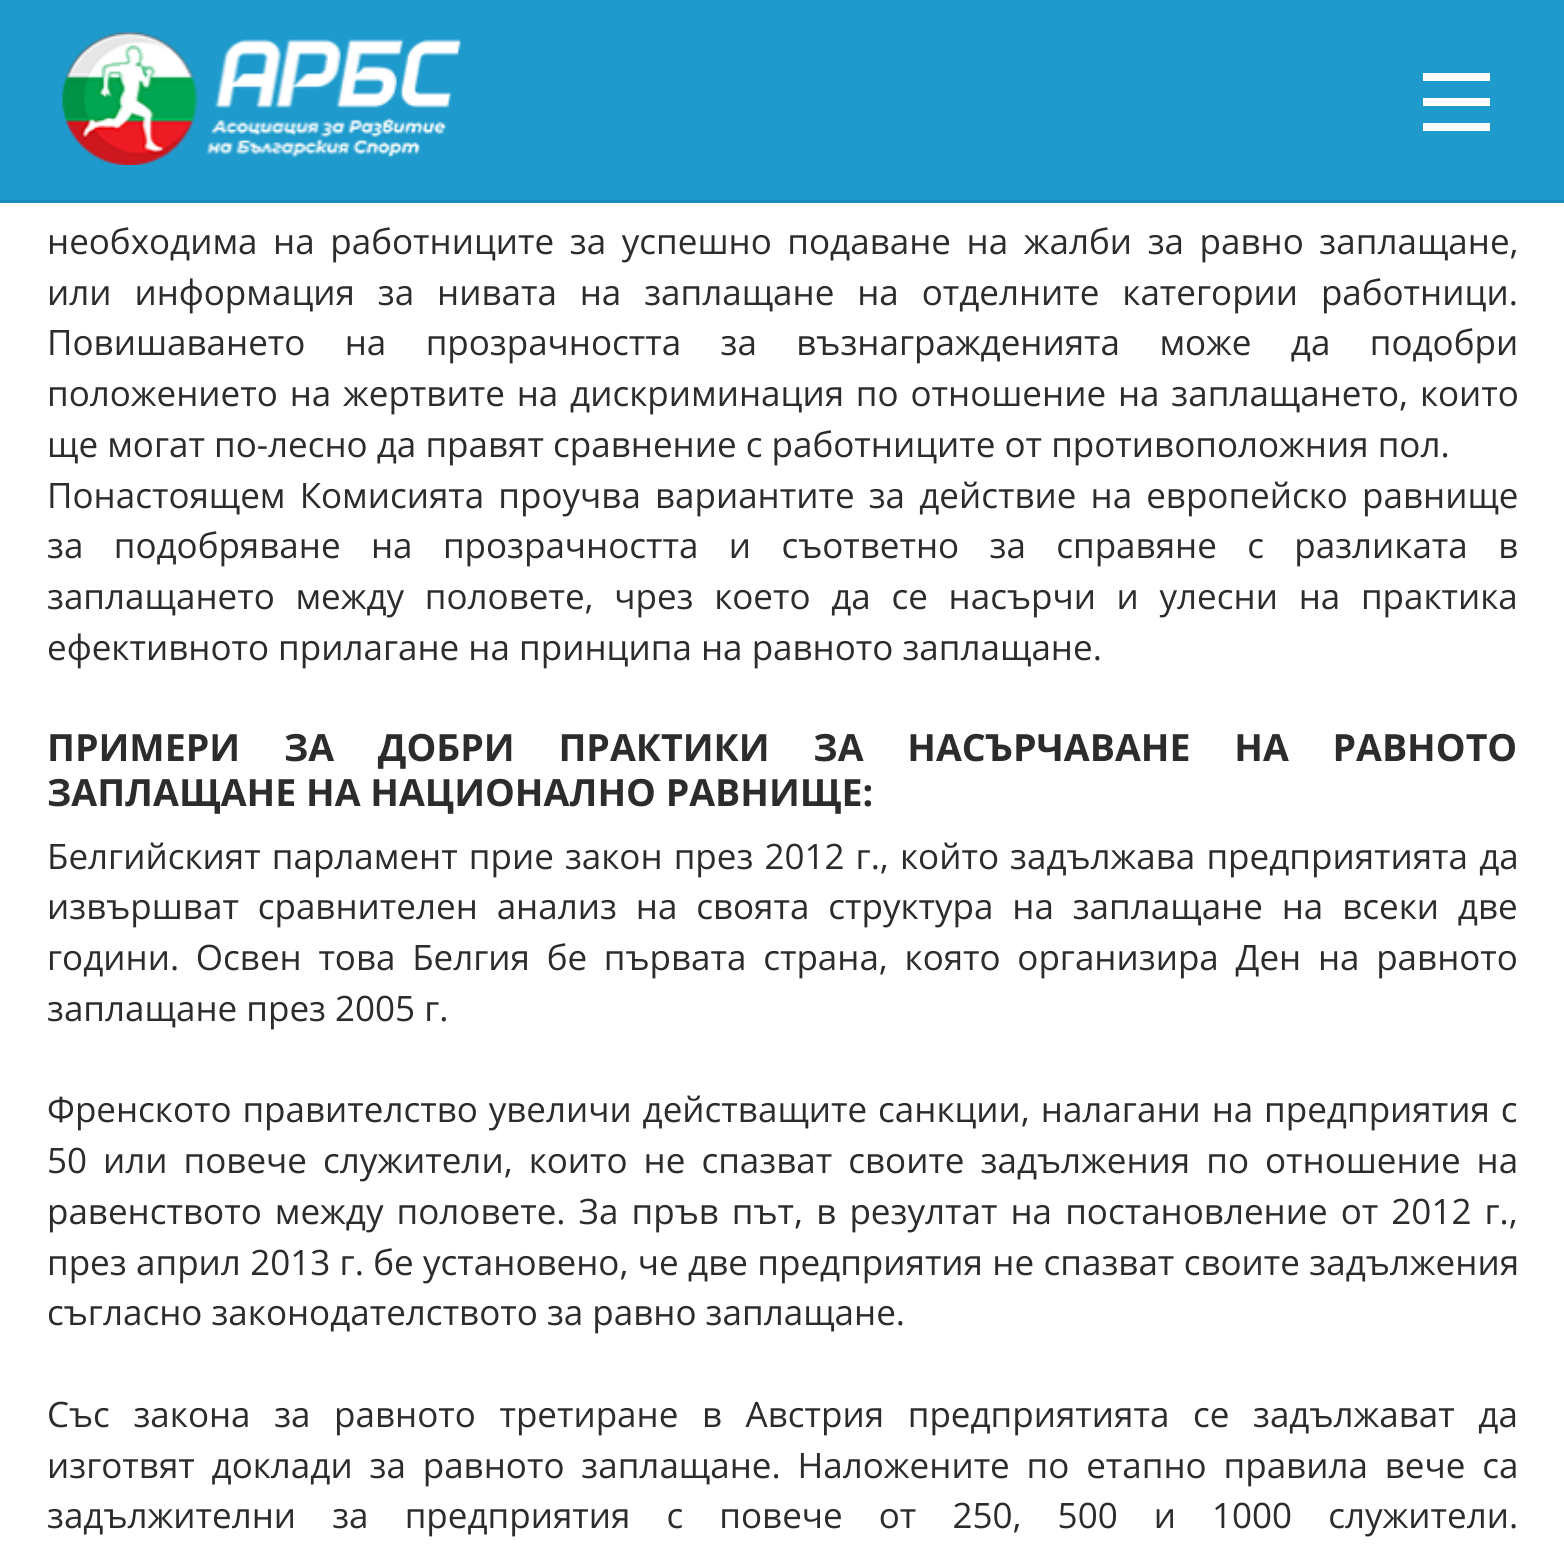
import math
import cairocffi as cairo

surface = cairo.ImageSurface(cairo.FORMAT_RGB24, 1564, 1554)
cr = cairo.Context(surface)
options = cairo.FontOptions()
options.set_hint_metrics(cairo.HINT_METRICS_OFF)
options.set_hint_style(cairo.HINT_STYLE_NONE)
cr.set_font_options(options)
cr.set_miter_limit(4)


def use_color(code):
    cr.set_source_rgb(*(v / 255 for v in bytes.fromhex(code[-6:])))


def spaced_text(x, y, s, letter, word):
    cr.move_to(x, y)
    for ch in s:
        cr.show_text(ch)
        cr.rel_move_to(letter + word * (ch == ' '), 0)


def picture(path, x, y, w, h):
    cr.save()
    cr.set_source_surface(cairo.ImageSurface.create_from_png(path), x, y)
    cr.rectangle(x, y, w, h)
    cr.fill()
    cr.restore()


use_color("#ffffff")
cr.paint()
use_color("#1e9bcc")
cr.rectangle(0, 0, 1564, 200)
cr.fill()
picture("img1.png", 62, 32, 399, 133)
use_color("#ffffff")
cr.rectangle(1423, 73, 67, 8)
cr.fill()
cr.rectangle(1423, 98, 67, 8)
cr.fill()
cr.rectangle(1423, 123, 67, 8)
cr.fill()
use_color("#198abd")
cr.rectangle(0, 200, 1564, 3)
cr.fill()
cr.select_font_face("Open Sans")
cr.set_font_size(35)
use_color("#2c2c2c")
spaced_text(47, 254, "необходима на работниците за успешно подаване на жалби за равно заплащане,", 0, 6.5)
spaced_text(47, 305, "или информация за нивата на заплащане на отделните категории работници.", 0, 13.75)
spaced_text(47, 355, "Повишаването на прозрачността за възнагражденията може да подобри", 0, 30.25)
spaced_text(47, 406, "положението на жертвите на дискриминация по отношение на заплащането, които", 0, 2.75)
cr.move_to(47, 457)
cr.show_text("ще могат по-лесно да правят сравнение с работниците от противоположния пол.")
spaced_text(47, 508, "Понастоящем Комисията проучва вариантите за действие на европейско равнище", 0, 5)
spaced_text(47, 558, "за подобряване на прозрачността и съответно за справяне с разликата в", 0, 21.25)
spaced_text(47, 609, "заплащането между половете, чрез което да се насърчи и улесни на практика", 0, 11.6)
cr.move_to(47, 660)
cr.show_text("ефективното прилагане на принципа на равното заплащане.")
cr.select_font_face("Open Sans", cairo.FONT_SLANT_NORMAL, cairo.FONT_WEIGHT_BOLD)
cr.set_font_size(37.5)
spaced_text(47, 761, "ПРИМЕРИ ЗА ДОБРИ ПРАКТИКИ ЗА НАСЪРЧАВАНЕ НА РАВНОТО", 0, 34)
cr.move_to(47, 806)
cr.show_text("ЗАПЛАЩАНЕ НА НАЦИОНАЛНО РАВНИЩЕ:")
cr.select_font_face("Open Sans")
cr.set_font_size(35)
spaced_text(47, 869, "Белгийският парламент прие закон през 2012 г., който задължава предприятията да", 0, 2)
spaced_text(47, 919, "извършват сравнителен анализ на своята структура на заплащане на всеки две", 0, 9.75)
spaced_text(47, 970, "години. Освен това Белгия бе първата страна, която организира Ден на равното", 0, 7.6)
cr.move_to(47, 1021)
cr.show_text("заплащане през 2005 г.")
spaced_text(47, 1122, "Френското правителство увеличи действащите санкции, налагани на предприятия с", 0, 1.75)
spaced_text(47, 1173, "50 или повече служители, които не спазват своите задължения по отношение на", 0, 6.9)
spaced_text(47, 1224, "равенството между половете. За пръв път, в резултат на постановление от 2012 г.,", 0, 4)
spaced_text(47, 1275, "през април 2013 г. бе установено, че две предприятия не спазват своите задължения", 0, 0.25)
cr.move_to(47, 1325)
cr.show_text("съгласно законодателството за равно заплащане.")
spaced_text(47, 1427, "Със закона за равното третиране в Австрия предприятията се задължават да", 0, 14.5)
spaced_text(47, 1478, "изготвят доклади за равното заплащане. Наложените по етапно правила вече са", 0, 7.75)
spaced_text(47, 1528, "задължителни за предприятия с повече от 250, 500 и 1000 служители.", 0, 27)
surface.write_to_png("result.png")
